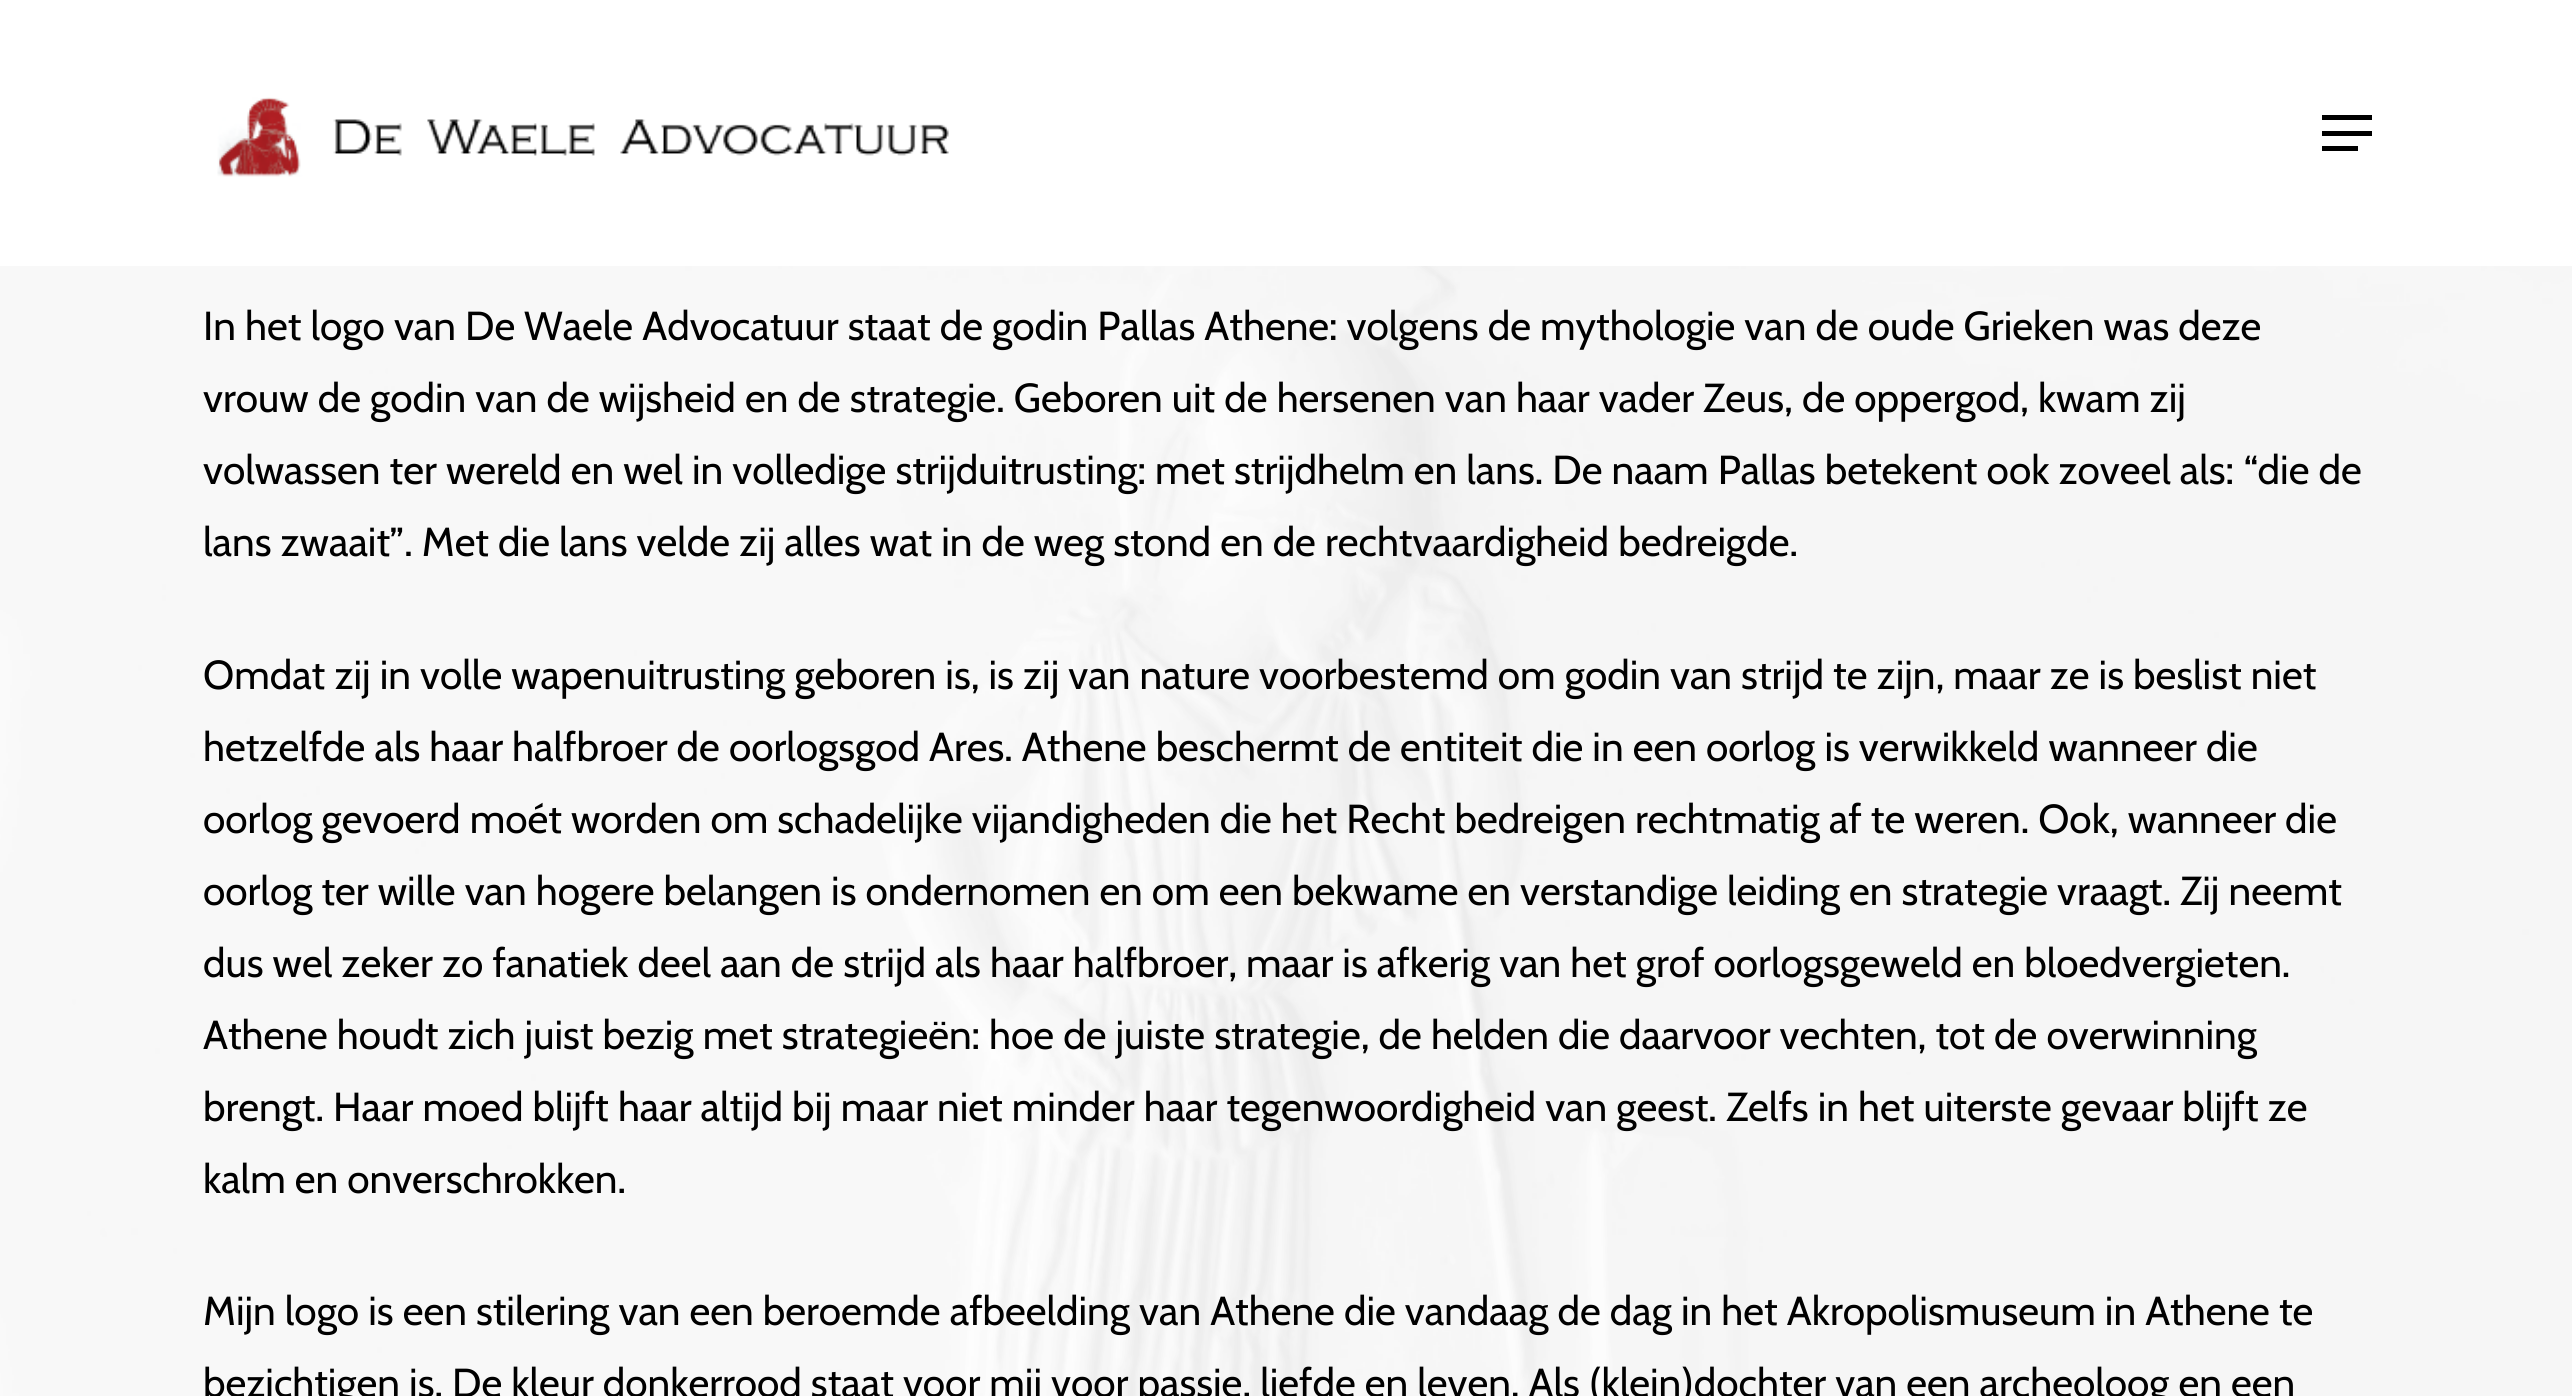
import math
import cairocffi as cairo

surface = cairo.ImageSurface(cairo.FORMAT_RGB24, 2572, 1396)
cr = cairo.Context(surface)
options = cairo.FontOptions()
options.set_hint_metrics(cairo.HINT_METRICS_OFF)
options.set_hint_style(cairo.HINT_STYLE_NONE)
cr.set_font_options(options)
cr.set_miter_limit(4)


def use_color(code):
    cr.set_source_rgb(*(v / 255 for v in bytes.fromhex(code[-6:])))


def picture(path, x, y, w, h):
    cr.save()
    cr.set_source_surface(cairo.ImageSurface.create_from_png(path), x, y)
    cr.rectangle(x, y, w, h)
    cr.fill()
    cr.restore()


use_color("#ffffff")
cr.paint()
picture("img1.png", 217, 97, 732, 80)
use_color("#000000")
cr.rectangle(2322, 115, 50, 5)
cr.fill()
cr.rectangle(2322, 146, 36, 5)
cr.fill()
cr.rectangle(2322, 131, 50, 5)
cr.fill()
picture("img2.png", 0, 266, 2572, 1130)
cr.select_font_face("Cabin")
cr.set_font_size(40.5)
cr.move_to(203, 340)
cr.show_text("In het logo van De Waele Advocatuur staat de godin Pallas Athene: volgens de mythologie van de oude Grieken was deze")
cr.move_to(203, 412)
cr.show_text("vrouw de godin van de wijsheid en de strategie. Geboren uit de hersenen van haar vader Zeus, de oppergod, kwam zij")
cr.move_to(203, 484)
cr.show_text("volwassen ter wereld en wel in volledige strijduitrusting: met strijdhelm en lans. De naam Pallas betekent ook zoveel als: “die de")
cr.move_to(203, 556)
cr.show_text("lans zwaait”. Met die lans velde zij alles wat in de weg stond en de rechtvaardigheid bedreigde.")
cr.move_to(203, 689)
cr.show_text("Omdat zij in volle wapenuitrusting geboren is, is zij van nature voorbestemd om godin van strijd te zijn, maar ze is beslist niet")
cr.move_to(203, 761)
cr.show_text("hetzelfde als haar halfbroer de oorlogsgod Ares. Athene beschermt de entiteit die in een oorlog is verwikkeld wanneer die")
cr.move_to(203, 833)
cr.show_text("oorlog gevoerd moét worden om schadelijke vijandigheden die het Recht bedreigen rechtmatig af te weren. Ook, wanneer die")
cr.move_to(203, 905)
cr.show_text("oorlog ter wille van hogere belangen is ondernomen en om een bekwame en verstandige leiding en strategie vraagt. Zij neemt")
cr.move_to(203, 977)
cr.show_text("dus wel zeker zo fanatiek deel aan de strijd als haar halfbroer, maar is afkerig van het grof oorlogsgeweld en bloedvergieten.")
cr.move_to(203, 1049)
cr.show_text("Athene houdt zich juist bezig met strategieën: hoe de juiste strategie, de helden die daarvoor vechten, tot de overwinning")
cr.move_to(203, 1121)
cr.show_text("brengt. Haar moed blijft haar altijd bij maar niet minder haar tegenwoordigheid van geest. Zelfs in het uiterste gevaar blijft ze")
cr.move_to(203, 1193)
cr.show_text("kalm en onverschrokken.")
cr.move_to(203, 1325)
cr.show_text("Mijn logo is een stilering van een beroemde afbeelding van Athene die vandaag de dag in het Akropolismuseum in Athene te")
cr.move_to(203, 1397)
cr.show_text("bezichtigen is. De kleur donkerrood staat voor mij voor passie, liefde en leven. Als (klein)dochter van een archeoloog en een")
surface.write_to_png("result.png")
